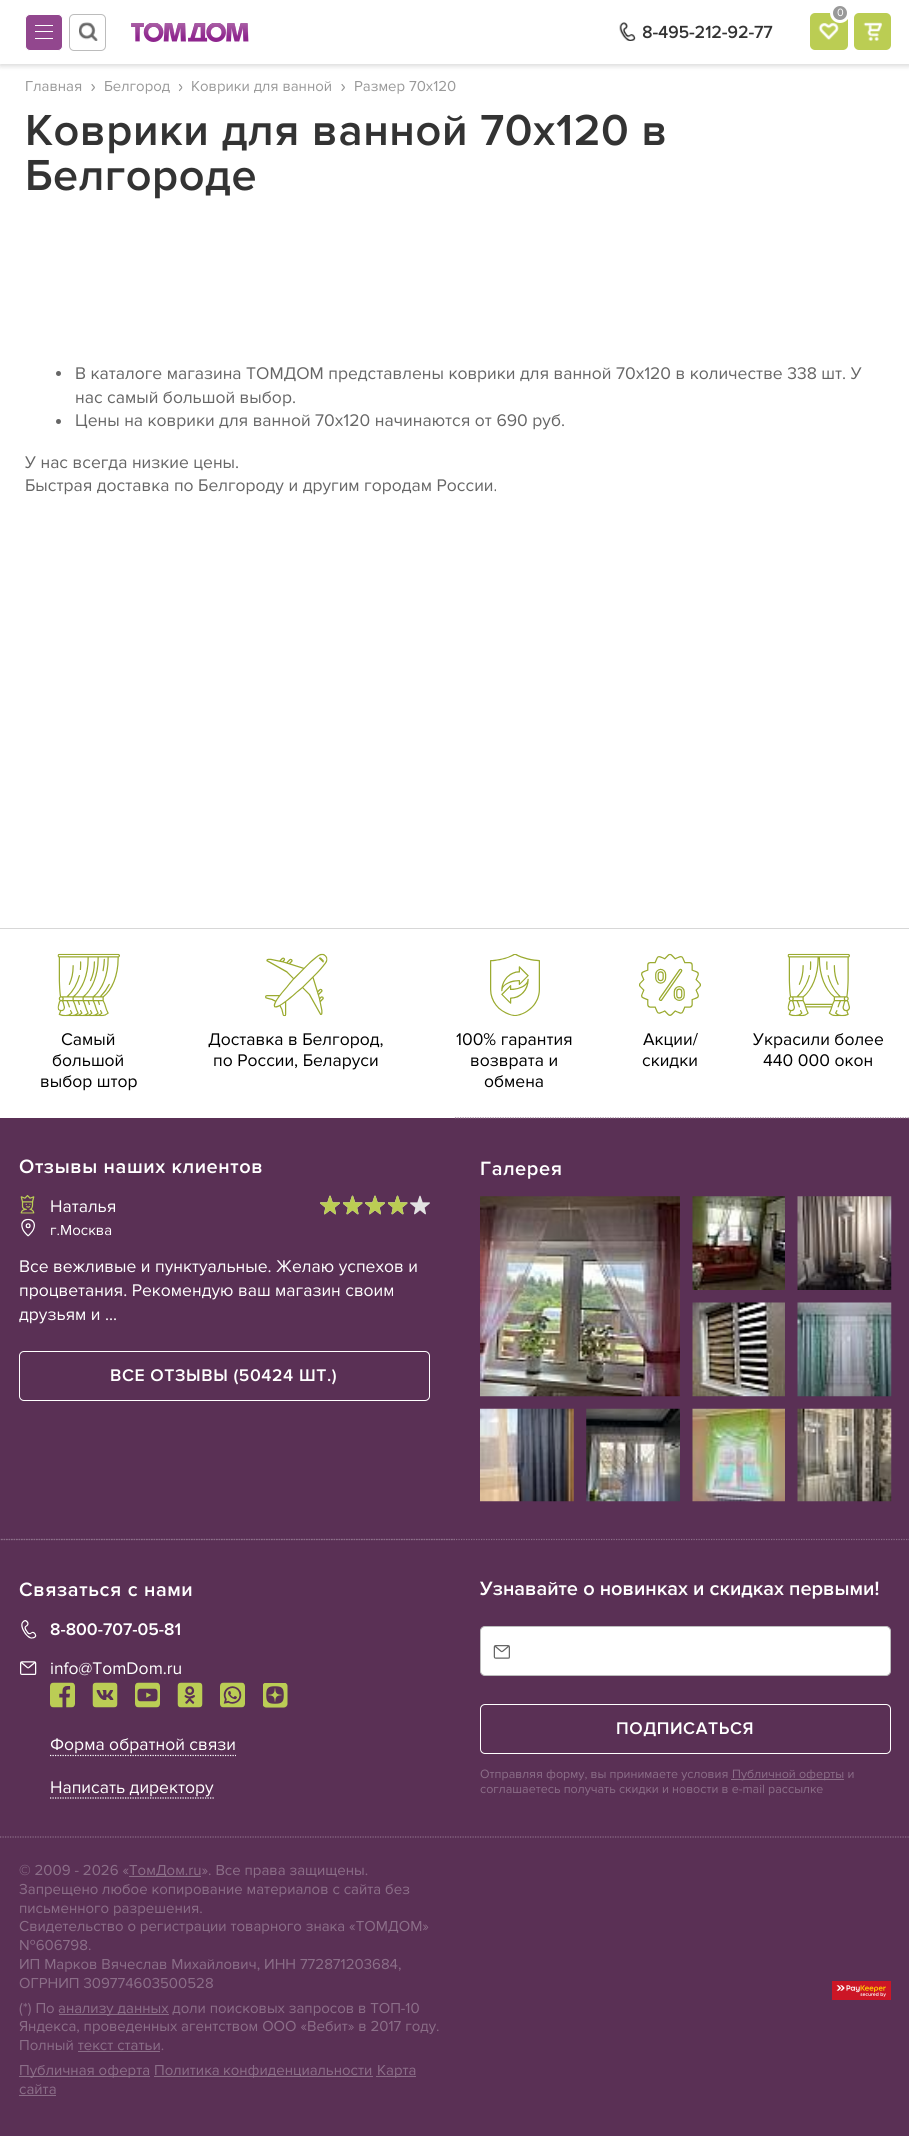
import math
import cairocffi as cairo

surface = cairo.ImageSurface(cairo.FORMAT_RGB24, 909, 2136)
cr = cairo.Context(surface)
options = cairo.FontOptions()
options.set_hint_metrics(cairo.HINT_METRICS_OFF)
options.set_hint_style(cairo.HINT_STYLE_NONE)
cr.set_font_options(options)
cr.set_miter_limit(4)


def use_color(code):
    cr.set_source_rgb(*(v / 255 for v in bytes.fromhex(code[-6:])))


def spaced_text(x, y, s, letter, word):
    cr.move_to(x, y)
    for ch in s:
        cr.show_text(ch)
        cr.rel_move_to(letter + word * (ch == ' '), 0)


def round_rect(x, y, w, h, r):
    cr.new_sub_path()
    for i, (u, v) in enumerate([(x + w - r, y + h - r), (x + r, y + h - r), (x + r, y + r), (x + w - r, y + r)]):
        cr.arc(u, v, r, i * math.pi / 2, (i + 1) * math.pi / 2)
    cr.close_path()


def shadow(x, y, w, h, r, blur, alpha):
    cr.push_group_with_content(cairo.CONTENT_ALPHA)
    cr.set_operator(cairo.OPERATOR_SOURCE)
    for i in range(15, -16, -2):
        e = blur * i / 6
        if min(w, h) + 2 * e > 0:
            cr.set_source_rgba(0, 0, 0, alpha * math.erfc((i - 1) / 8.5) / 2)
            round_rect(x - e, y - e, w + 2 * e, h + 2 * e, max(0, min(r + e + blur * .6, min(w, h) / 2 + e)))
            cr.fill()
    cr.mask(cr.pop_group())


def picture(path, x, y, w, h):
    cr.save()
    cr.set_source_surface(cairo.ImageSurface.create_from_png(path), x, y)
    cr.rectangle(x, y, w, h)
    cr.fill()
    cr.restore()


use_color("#ffffff")
cr.paint()
use_color("#000000")
shadow(0, 3, 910, 63, 0, 2.5, 0.15)
use_color("#ffffff")
cr.rectangle(0, 0, 909, 64)
cr.fill()
use_color("#bbcd53")
round_rect(810, 13, 38, 37, 5)
cr.fill()
picture("img1.png", 818, 22, 21, 18)
use_color("#999999")
cr.arc(840, 13, 8.5, 0, 2 * math.pi)
cr.fill_preserve()
use_color("#ffffff")
cr.set_line_width(3)
cr.stroke()
cr.select_font_face("Proxima Nova")
cr.set_font_size(11)
cr.move_to(837, 16)
cr.show_text("0")
use_color("#bbcd53")
round_rect(854, 13, 37, 37, 5)
cr.fill()
picture("img2.png", 863, 22, 20, 19)
use_color("#92478e")
round_rect(25.5, 14.5, 37, 36, 4.5)
cr.fill_preserve()
use_color("#ffffff")
cr.set_line_width(1)
cr.stroke()
cr.rectangle(35, 31, 18, 1)
cr.fill()
cr.rectangle(35, 25, 18, 1)
cr.fill()
cr.rectangle(35, 38, 18, 1)
cr.fill()
round_rect(69.5, 14.5, 36, 36, 4.5)
use_color("#bcbcbc")
cr.stroke()
picture("img3.png", 79, 22, 19, 19)
picture("img4.png", 131, 23, 118, 19)
picture("img5.png", 619, 22, 17, 19)
cr.select_font_face("Proxima Nova", cairo.FONT_SLANT_NORMAL, cairo.FONT_WEIGHT_BOLD)
cr.set_font_size(17.5)
use_color("#333333")
spaced_text(642, 38, "8-495-212-92-77", 0.25, 0)
cr.select_font_face("Proxima Nova")
cr.set_font_size(15)
use_color("#999999")
cr.move_to(25, 91)
cr.show_text("Главная")
picture("img6.png", 91, 84, 4, 7)
cr.move_to(104, 91)
cr.show_text("Белгород")
picture("img7.png", 178, 84, 5, 8)
cr.move_to(191, 91)
cr.show_text("Коврики для ванной")
picture("img6.png", 341, 84, 4, 7)
cr.move_to(354, 91)
cr.show_text("Размер 70х120")
cr.select_font_face("Proxima Nova SemiBold")
cr.set_font_size(45)
use_color("#333333")
spaced_text(25, 145, "Коврики для ванной 70х120 в", 0.6, 0)
spaced_text(25, 190, "Белгороде", 0.6, 0)
use_color("#666666")
cr.new_path()
cr.arc(58.5, 373.5, 2.5, 0, 2 * math.pi)
cr.fill()
cr.select_font_face("Proxima Nova")
cr.set_font_size(17.5)
cr.move_to(75, 379)
cr.show_text("В каталоге магазина ТОМДОМ представлены коврики для ванной 70х120 в количестве 338 шт. У")
cr.move_to(75, 403)
cr.show_text("нас самый большой выбор.")
cr.new_path()
cr.arc(58.5, 421.5, 2.5, 0, 2 * math.pi)
cr.fill()
cr.move_to(75, 426)
cr.show_text("Цены на коврики для ванной 70х120 начинаются от 690 руб.")
cr.move_to(25, 468)
cr.show_text("У нас всегда низкие цены.")
cr.move_to(25, 491)
cr.show_text("Быстрая доставка по Белгороду и другим городам России.")
use_color("#d7d7d7")
cr.rectangle(0, 928, 909, 1)
cr.fill()
picture("img8.png", 57, 953, 63, 64)
use_color("#000000")
cr.move_to(61, 1045)
cr.show_text("Самый")
cr.move_to(52, 1066)
cr.show_text("большой")
cr.move_to(40, 1087)
cr.show_text("выбор штор")
picture("img9.png", 265, 953, 63, 64)
cr.move_to(208, 1045)
cr.show_text("Доставка в Белгород,")
cr.move_to(213, 1066)
cr.show_text("по России, Беларуси")
picture("img10.png", 490, 954, 50, 62)
cr.move_to(456, 1045)
cr.show_text("100% гарантия")
cr.move_to(470, 1066)
cr.show_text("возврата и")
cr.move_to(484, 1087)
cr.show_text("обмена")
picture("img11.png", 639, 953, 62, 63)
cr.move_to(643, 1045)
cr.show_text("Акции/")
cr.move_to(642, 1066)
cr.show_text("скидки")
picture("img12.png", 787, 953, 63, 64)
cr.move_to(753, 1045)
cr.show_text("Украсили более")
cr.move_to(763, 1066)
cr.show_text("440 000 окон")
use_color("#5a3055")
cr.rectangle(0, 1118, 909, 1018)
cr.fill()
cr.select_font_face("Proxima Nova SemiBold")
cr.set_font_size(20)
use_color("#ffffff")
spaced_text(19, 1173, "Отзывы наших клиентов", 0.6, 0)
picture("img13.png", 20, 1195, 15, 19)
cr.select_font_face("Proxima Nova")
cr.set_font_size(17.5)
cr.move_to(50, 1212)
cr.show_text("Наталья")
picture("img14.png", 21, 1218, 14, 19)
cr.set_font_size(15)
cr.move_to(50, 1235)
cr.show_text("г.Москва")
picture("img15.png", 320, 1195, 20, 20)
picture("img16.png", 343, 1195, 20, 20)
picture("img15.png", 365, 1195, 20, 20)
picture("img16.png", 388, 1195, 20, 20)
picture("img15.png", 410, 1195, 20, 20)
picture("img17.png", 320, 1195, 20, 20)
picture("img18.png", 343, 1195, 20, 20)
picture("img17.png", 365, 1195, 20, 20)
picture("img18.png", 388, 1195, 20, 20)
cr.set_font_size(17.5)
cr.move_to(19, 1272)
cr.show_text("Все вежливые и пунктуальные. Желаю успехов и")
cr.move_to(19, 1296)
cr.show_text("процветания. Рекомендую ваш магазин своим")
cr.move_to(19, 1320)
cr.show_text("друзьям и ...")
round_rect(19.5, 1351.5, 410, 49, 4.5)
cr.stroke()
cr.select_font_face("Proxima Nova SemiBold")
spaced_text(110, 1381, "ВСЕ ОТЗЫВЫ (50424 ШТ.)", 0.6, 0)
cr.new_path()
cr.move_to(455, 1118)
cr.line_to(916, 1118)
use_color("#8b6e88")
cr.set_line_width(1.2)
cr.set_dash([1.25, 1.25])
cr.stroke()
cr.set_font_size(20)
use_color("#ffffff")
spaced_text(480, 1175, "Галерея", 0.6, 0)
picture("img19.png", 480, 1196, 200, 201)
picture("img20.png", 692, 1196, 93, 94)
picture("img21.png", 797, 1196, 95, 94)
picture("img22.png", 692, 1302, 93, 95)
picture("img23.png", 797, 1302, 95, 95)
picture("img24.png", 480, 1408, 94, 94)
picture("img25.png", 586, 1408, 94, 94)
picture("img26.png", 692, 1408, 93, 94)
picture("img27.png", 797, 1408, 95, 94)
cr.new_path()
cr.move_to(-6, 1539.5)
cr.line_to(455, 1539.5)
use_color("#8b6e88")
cr.stroke()
use_color("#ffffff")
spaced_text(19, 1596, "Связаться с нами", 0.6, 0)
picture("img28.png", 21, 1620, 16, 19)
cr.set_font_size(17.5)
cr.move_to(50, 1635)
cr.show_text("8-800-707-05-81")
picture("img29.png", 20, 1661, 17, 14)
cr.select_font_face("Proxima Nova")
cr.move_to(50, 1674)
cr.show_text("info@TomDom.ru")
picture("img30.png", 50, 1682, 25, 26)
picture("img31.png", 92, 1682, 26, 26)
picture("img32.png", 135, 1682, 25, 26)
picture("img33.png", 177, 1682, 26, 26)
picture("img34.png", 220, 1682, 25, 26)
picture("img35.png", 263, 1683, 25, 25)
cr.move_to(50, 1750)
cr.show_text("Форма обратной связи")
cr.new_path()
cr.move_to(50, 1755.5)
cr.line_to(236, 1755.5)
cr.stroke()
cr.move_to(50, 1793)
cr.show_text("Написать директору")
cr.new_path()
cr.move_to(50, 1798)
cr.line_to(214, 1798)
cr.stroke()
cr.new_path()
cr.move_to(-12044, 1539.5)
cr.line_to(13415, 1539.5)
use_color("#8b6e88")
cr.stroke()
cr.select_font_face("Proxima Nova SemiBold")
cr.set_font_size(20)
use_color("#ffffff")
cr.move_to(480, 1595)
cr.show_text("Узнавайте о новинках и скидках первыми!")
round_rect(480.5, 1626.5, 410, 49, 4.5)
cr.fill_preserve()
use_color("#bcbcbc")
cr.set_line_width(1)
cr.set_dash([])
cr.stroke()
picture("img36.png", 493, 1645, 17, 14)
round_rect(480.5, 1704.5, 410, 49, 4.5)
use_color("#ffffff")
cr.stroke()
cr.set_font_size(17.5)
spaced_text(616, 1734, "ПОДПИСАТЬСЯ", 0.6, 0)
cr.select_font_face("Proxima Nova")
cr.set_font_size(12.5)
use_color("#8b6e88")
cr.move_to(480, 1778)
cr.show_text("Отправляя форму, вы принимаете условия")
cr.rectangle(731, 1779, 113, 1)
cr.fill()
cr.move_to(732, 1778)
cr.show_text("Публичной оферты и")
cr.move_to(480, 1793)
cr.show_text("соглашаетесь получать скидки и новости в e-mail рассылке")
cr.new_path()
cr.move_to(-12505, 1837)
cr.line_to(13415, 1837)
cr.set_line_width(1.2)
cr.set_dash([1.25, 1.25])
cr.stroke()
cr.set_font_size(15)
cr.move_to(19, 1875)
cr.show_text("© 2009 - 2026 «")
cr.rectangle(129, 1876, 72, 1)
cr.fill()
cr.move_to(129, 1875)
cr.show_text("ТомДом.ru». Все права защищены.")
cr.move_to(19, 1894)
cr.show_text("Запрещено любое копирование материалов с сайта без")
cr.move_to(19, 1913)
cr.show_text("письменного разрешения.")
cr.move_to(19, 1931)
cr.show_text("Свидетельство о регистрации товарного знака «ТОМДОМ»")
cr.move_to(19, 1950)
cr.show_text("№606798.")
cr.move_to(19, 1969)
cr.show_text("ИП Марков Вячеслав Михайлович, ИНН 772871203684,")
cr.move_to(19, 1988)
cr.show_text("ОГРНИП 309774603500528")
cr.move_to(19, 2013)
cr.show_text("(*) По")
cr.rectangle(59, 2014, 110, 1)
cr.fill()
cr.move_to(58, 2013)
cr.show_text("анализу данных доли поисковых запросов в ТОП-10")
cr.move_to(19, 2031)
cr.show_text("Яндекса, проведенных агентством ООО «Вебит» в 2017 году.")
cr.move_to(19, 2050)
cr.show_text("Полный текст статьи.")
cr.rectangle(78, 2051, 82, 1)
cr.fill()
cr.rectangle(19, 2076, 131, 1)
cr.fill()
cr.move_to(19, 2075)
cr.show_text("Публичная оферта Политика")
cr.rectangle(154, 2076, 219, 1)
cr.fill()
cr.move_to(223, 2075)
cr.show_text("конфиденциальности")
cr.rectangle(376, 2076, 40, 1)
cr.fill()
cr.move_to(377, 2075)
cr.show_text("Карта")
cr.move_to(19, 2094)
cr.show_text("сайта")
cr.rectangle(19, 2095, 37, 1)
cr.fill()
picture("img37.png", 832, 1981, 59, 19)
surface.write_to_png("result.png")
